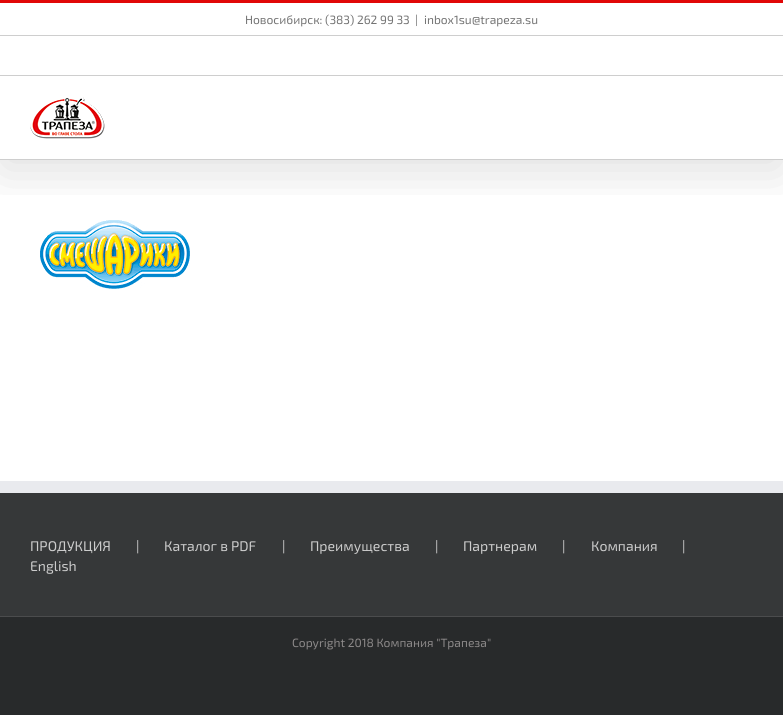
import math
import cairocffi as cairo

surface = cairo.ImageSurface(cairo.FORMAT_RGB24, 783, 715)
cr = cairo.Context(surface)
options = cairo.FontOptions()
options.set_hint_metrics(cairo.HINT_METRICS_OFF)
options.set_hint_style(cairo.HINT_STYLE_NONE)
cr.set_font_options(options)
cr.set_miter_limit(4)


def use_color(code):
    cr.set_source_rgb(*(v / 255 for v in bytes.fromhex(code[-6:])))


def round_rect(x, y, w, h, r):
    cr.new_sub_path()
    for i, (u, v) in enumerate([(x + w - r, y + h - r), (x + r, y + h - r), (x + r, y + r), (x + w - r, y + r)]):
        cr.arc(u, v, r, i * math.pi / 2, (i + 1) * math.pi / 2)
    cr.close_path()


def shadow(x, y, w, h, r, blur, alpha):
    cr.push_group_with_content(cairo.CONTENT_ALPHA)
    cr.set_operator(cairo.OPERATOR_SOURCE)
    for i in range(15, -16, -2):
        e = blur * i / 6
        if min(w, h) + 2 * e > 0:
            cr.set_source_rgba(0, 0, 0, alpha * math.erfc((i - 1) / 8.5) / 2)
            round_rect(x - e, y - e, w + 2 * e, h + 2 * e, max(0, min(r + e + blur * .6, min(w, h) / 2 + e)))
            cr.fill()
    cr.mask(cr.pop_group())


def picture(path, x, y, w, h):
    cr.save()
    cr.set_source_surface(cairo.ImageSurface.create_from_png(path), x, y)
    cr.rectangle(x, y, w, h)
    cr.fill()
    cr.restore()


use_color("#ffffff")
cr.paint()
picture("img2.png", 40, 220, 150, 69)
cr.save()
cr.rectangle(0, 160, 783, 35)
cr.clip()
use_color("#000000")
shadow(2, 12, 779, 156, 0, 25, 0.14)
cr.restore()
use_color("#e10707")
cr.rectangle(0, 0, 783, 3)
cr.fill()
use_color("#cecece")
cr.rectangle(0, 75, 783, 1)
cr.fill()
cr.rectangle(0, 35, 783, 1)
cr.fill()
cr.select_font_face("Exo 2")
cr.set_font_size(12)
use_color("#747474")
cr.move_to(245, 24)
cr.show_text("Новосибирск: (383) 262 99 33")
cr.move_to(415, 24)
cr.show_text("|")
cr.move_to(424, 24)
cr.show_text("inbox1su@trapeza.su")
use_color("#cecece")
cr.rectangle(0, 159, 783, 1)
cr.fill()
picture("img1.png", 30, 97, 75, 42)
use_color("#363839")
cr.rectangle(0, 493, 783, 123)
cr.fill()
use_color("#e9eaee")
cr.rectangle(0, 481, 783, 12)
cr.fill()
cr.set_font_size(14)
use_color("#cccccc")
cr.move_to(30, 551)
cr.show_text("ПРОДУКЦИЯ")
cr.move_to(136, 551)
cr.show_text("|")
cr.move_to(164, 551)
cr.show_text("Каталог в PDF")
cr.move_to(282, 551)
cr.show_text("|")
cr.move_to(310, 551)
cr.show_text("Преимущества")
cr.move_to(435, 551)
cr.show_text("|")
cr.move_to(463, 551)
cr.show_text("Партнерам")
cr.move_to(562, 551)
cr.show_text("|")
cr.move_to(591, 551)
cr.show_text("Компания")
cr.move_to(682, 551)
cr.show_text("|")
cr.move_to(30, 571)
cr.show_text("English")
use_color("#282a2b")
cr.rectangle(0, 617, 783, 98)
cr.fill()
use_color("#4b4c4d")
cr.rectangle(0, 616, 783, 1)
cr.fill()
cr.set_font_size(12)
use_color("#8c8989")
cr.move_to(292, 647)
cr.show_text("Copyright 2018 Компания \"Трапеза\"")
surface.write_to_png("result.png")
